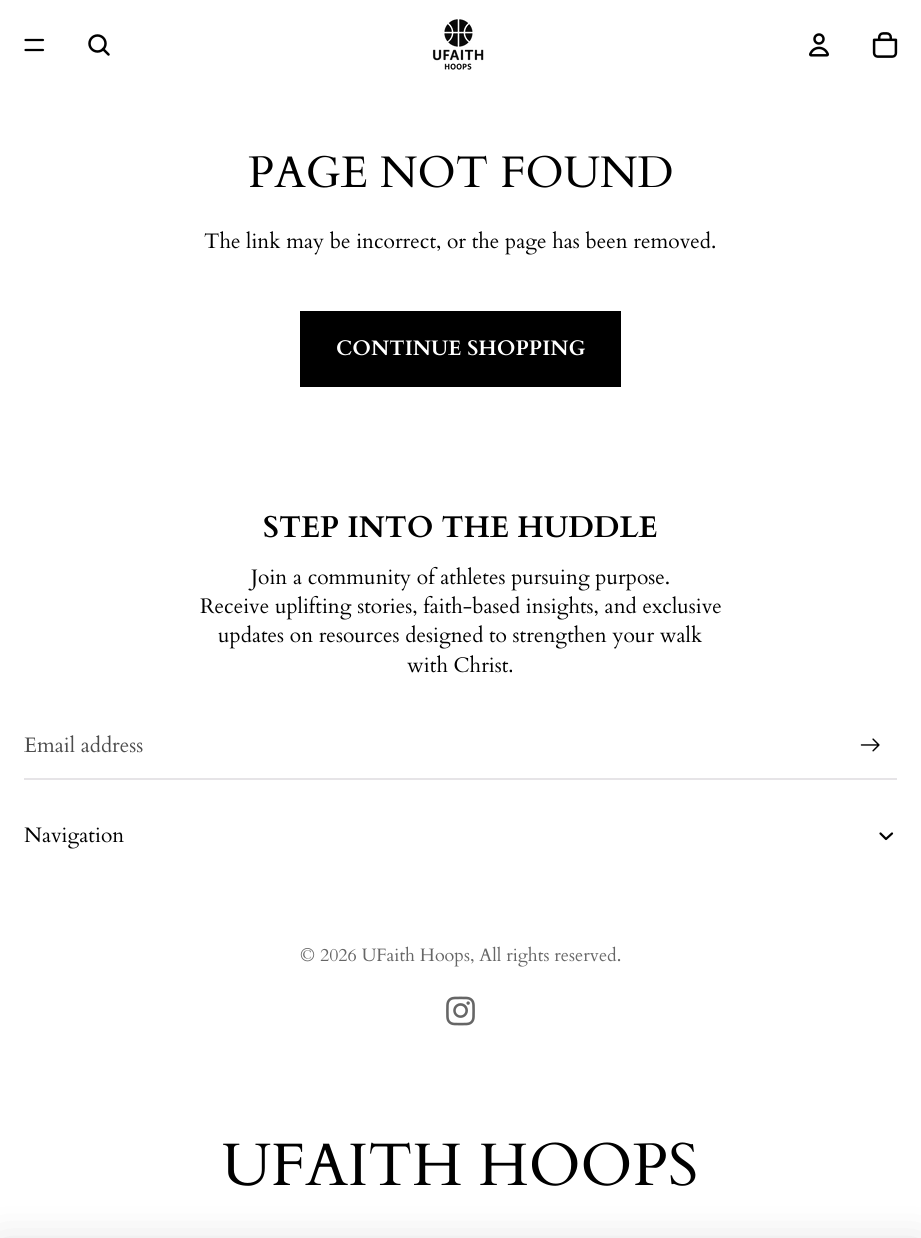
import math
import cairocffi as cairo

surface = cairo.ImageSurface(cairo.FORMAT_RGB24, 921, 1238)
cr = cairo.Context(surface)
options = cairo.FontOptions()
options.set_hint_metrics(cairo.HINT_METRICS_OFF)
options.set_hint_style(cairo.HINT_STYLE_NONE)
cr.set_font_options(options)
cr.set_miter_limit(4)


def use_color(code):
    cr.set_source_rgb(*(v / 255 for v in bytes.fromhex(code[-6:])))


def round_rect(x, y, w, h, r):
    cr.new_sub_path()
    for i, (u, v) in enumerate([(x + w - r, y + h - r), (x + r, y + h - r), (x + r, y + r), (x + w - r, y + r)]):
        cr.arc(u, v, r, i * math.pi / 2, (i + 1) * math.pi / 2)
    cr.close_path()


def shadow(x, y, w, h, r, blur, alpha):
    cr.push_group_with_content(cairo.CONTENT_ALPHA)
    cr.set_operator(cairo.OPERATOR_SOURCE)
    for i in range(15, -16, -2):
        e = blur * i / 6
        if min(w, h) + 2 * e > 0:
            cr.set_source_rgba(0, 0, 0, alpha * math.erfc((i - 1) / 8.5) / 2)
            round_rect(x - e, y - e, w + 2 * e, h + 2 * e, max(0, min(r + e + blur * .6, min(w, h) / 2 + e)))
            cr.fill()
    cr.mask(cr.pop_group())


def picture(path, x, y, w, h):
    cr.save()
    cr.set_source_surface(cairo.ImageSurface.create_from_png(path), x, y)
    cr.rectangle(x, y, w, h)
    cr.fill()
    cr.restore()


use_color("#ffffff")
cr.paint()
cr.new_path()
cr.move_to(25.5, 40)
cr.line_to(43, 40)
cr.move_to(25.5, 50)
cr.line_to(43, 50)
use_color("#000000")
cr.set_line_width(2.2)
cr.set_line_cap(cairo.LINE_CAP_ROUND)
cr.stroke()
cr.arc(97.5, 43.5, 8, 0, 2 * math.pi)
cr.set_line_width(2.5)
cr.set_line_cap(cairo.LINE_CAP_BUTT)
cr.stroke()
cr.new_path()
cr.move_to(103, 49)
cr.line_to(108.5, 54.5)
cr.set_line_cap(cairo.LINE_CAP_ROUND)
cr.set_line_join(cairo.LINE_JOIN_ROUND)
cr.stroke()
picture("img1.png", 432, 19, 52, 51)
picture("img2.png", 809, 33, 20, 24)
picture("img3.png", 872, 32, 26, 26)
cr.select_font_face("Cardo")
cr.set_font_size(44.25)
cr.move_to(248, 187)
cr.show_text("PAGE NOT FOUND")
cr.set_font_size(21)
cr.move_to(204, 248)
cr.show_text("The link may be incorrect, or the page has been removed.")
cr.rectangle(300, 311, 321, 76)
cr.fill()
cr.select_font_face("Cardo", cairo.FONT_SLANT_NORMAL, cairo.FONT_WEIGHT_BOLD)
use_color("#ffffff")
cr.move_to(336, 355)
cr.show_text("CONTINUE SHOPPING")
cr.set_font_size(30)
use_color("#000000")
cr.move_to(263, 537)
cr.show_text("STEP INTO THE HUDDLE")
cr.select_font_face("Cardo")
cr.set_font_size(21)
cr.move_to(251, 584)
cr.show_text("Join a community of athletes pursuing purpose.")
cr.move_to(200, 613)
cr.show_text("Receive uplifting stories, faith-based insights, and exclusive")
cr.move_to(218, 642)
cr.show_text("updates on resources designed to strengthen your walk")
cr.move_to(407, 672)
cr.show_text("with Christ.")
use_color("#e6e4e7")
cr.rectangle(24, 778, 873, 2)
cr.fill()
use_color("#4d4d4d")
cr.move_to(24, 752)
cr.show_text("Email address")
picture("img4.png", 860, 738, 20, 14)
use_color("#000000")
cr.move_to(24, 842)
cr.show_text("Navigation")
cr.new_path()
cr.move_to(892, 833.5)
cr.line_to(886, 839)
cr.line_to(880.5, 833.5)
cr.set_line_width(2.2)
cr.stroke()
cr.set_font_size(18)
use_color("#666666")
cr.move_to(300, 961)
cr.show_text("© 2026 UFaith Hoops, All rights reserved.")
picture("img5.png", 446, 996, 29, 30)
use_color("#000000")
shadow(0, 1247, 921, 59, 0, 22.5, 0.15)
cr.set_font_size(60)
use_color("#000000")
cr.move_to(222, 1185)
cr.show_text("UFAITH HOOPS")
surface.write_to_png("result.png")
